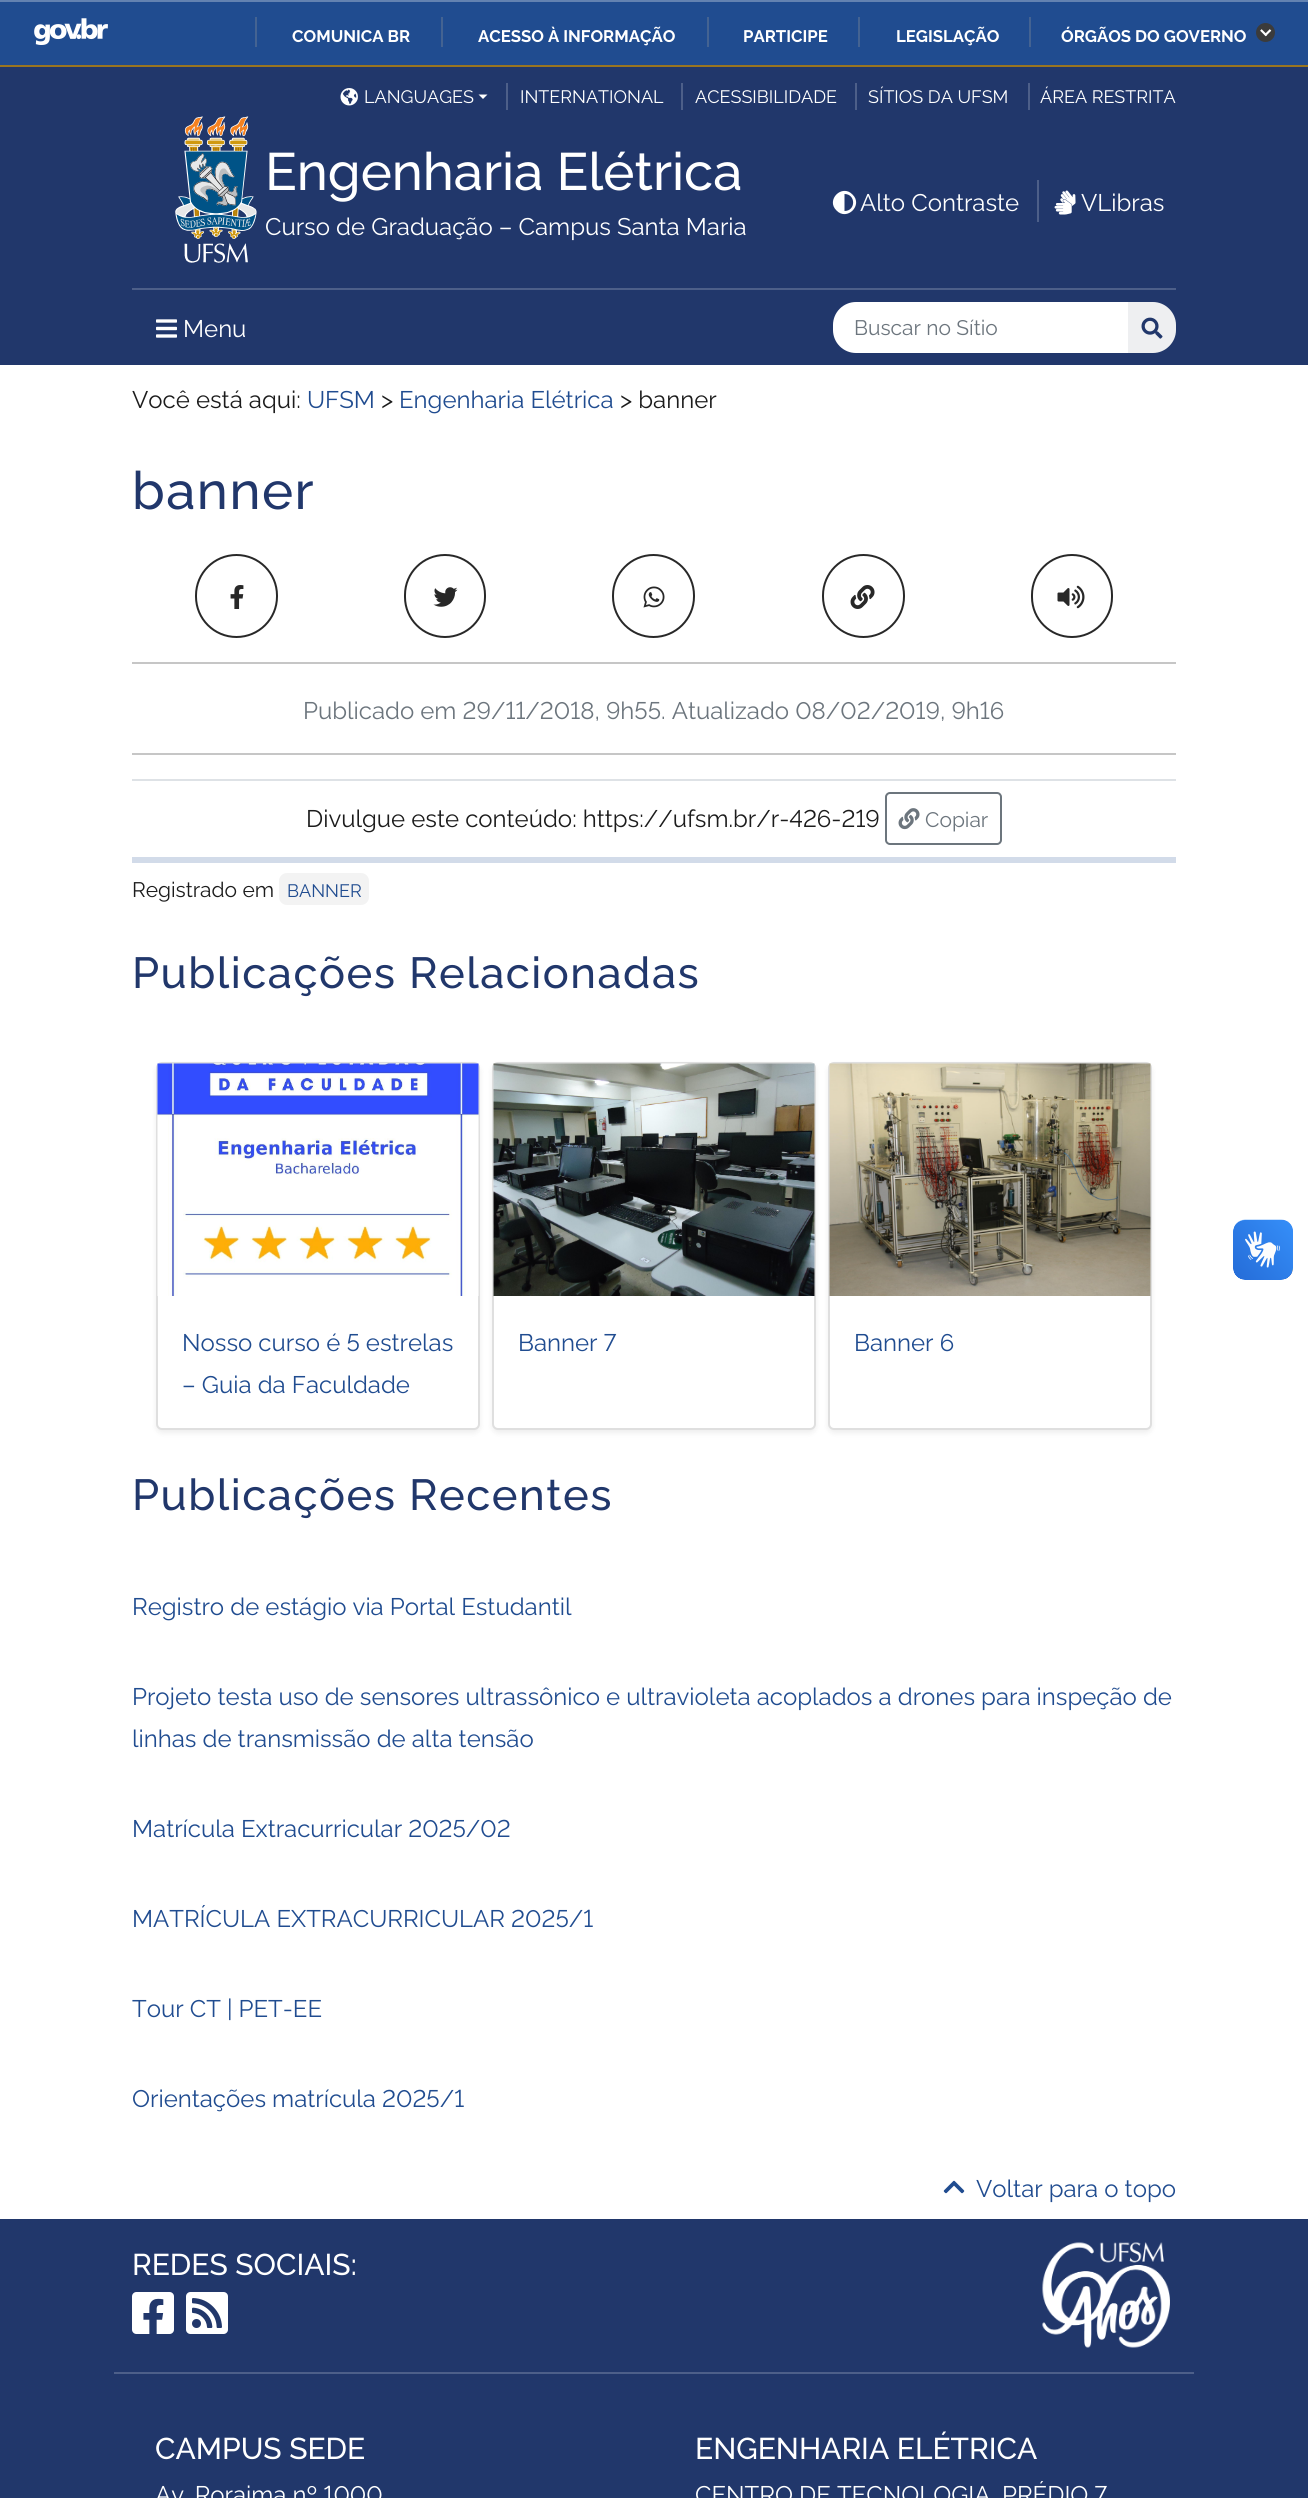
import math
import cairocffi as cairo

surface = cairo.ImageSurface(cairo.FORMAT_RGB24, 1308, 2498)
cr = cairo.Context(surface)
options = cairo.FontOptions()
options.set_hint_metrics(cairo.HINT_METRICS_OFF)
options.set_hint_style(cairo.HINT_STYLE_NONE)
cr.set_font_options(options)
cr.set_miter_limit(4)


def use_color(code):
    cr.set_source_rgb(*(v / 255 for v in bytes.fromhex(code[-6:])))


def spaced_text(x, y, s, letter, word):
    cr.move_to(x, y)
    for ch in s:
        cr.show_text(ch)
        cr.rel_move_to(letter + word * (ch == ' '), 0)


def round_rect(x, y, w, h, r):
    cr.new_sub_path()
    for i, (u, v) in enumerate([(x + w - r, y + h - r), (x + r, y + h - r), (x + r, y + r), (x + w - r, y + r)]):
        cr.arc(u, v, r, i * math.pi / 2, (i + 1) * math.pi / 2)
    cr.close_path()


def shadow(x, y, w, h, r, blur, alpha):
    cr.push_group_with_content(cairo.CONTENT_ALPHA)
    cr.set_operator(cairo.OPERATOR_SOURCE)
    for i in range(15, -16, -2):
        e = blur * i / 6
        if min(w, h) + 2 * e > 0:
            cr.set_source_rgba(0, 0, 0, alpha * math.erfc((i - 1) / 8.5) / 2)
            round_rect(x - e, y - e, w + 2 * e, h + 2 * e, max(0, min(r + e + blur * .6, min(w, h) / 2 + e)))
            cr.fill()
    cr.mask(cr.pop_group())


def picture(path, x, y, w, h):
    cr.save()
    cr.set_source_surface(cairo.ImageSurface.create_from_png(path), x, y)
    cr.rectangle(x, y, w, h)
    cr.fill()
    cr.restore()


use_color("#ffffff")
cr.paint()
use_color("#204c90")
cr.rectangle(0, 2, 1308, 63)
cr.fill()
use_color("#6382b1")
cr.rectangle(0, 0, 1308, 2)
cr.fill()
picture("img1.png", 34, 18, 74, 27)
use_color("#446392")
cr.rectangle(255, 17, 2, 30)
cr.fill()
cr.select_font_face("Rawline", cairo.FONT_SLANT_NORMAL, cairo.FONT_WEIGHT_BOLD)
cr.set_font_size(16.75)
use_color("#ffffff")
cr.move_to(292, 42)
cr.show_text("COMUNICA BR")
use_color("#446392")
cr.rectangle(441, 17, 2, 30)
cr.fill()
use_color("#ffffff")
cr.move_to(478, 42)
cr.show_text("ACESSO À INFORMAÇÃO")
use_color("#446392")
cr.rectangle(707, 17, 2, 30)
cr.fill()
use_color("#ffffff")
cr.move_to(743, 42)
cr.show_text("PARTICIPE")
use_color("#446392")
cr.rectangle(858, 17, 2, 30)
cr.fill()
use_color("#ffffff")
cr.move_to(896, 42)
cr.show_text("LEGISLAÇÃO")
use_color("#446392")
cr.rectangle(1029, 17, 2, 30)
cr.fill()
use_color("#ffffff")
cr.move_to(1061, 42)
cr.show_text("ÓRGÃOS DO GOVERNO")
use_color("#3b3b3b")
cr.new_path()
cr.arc(1265.5, 32.5, 9.5, 0, 2 * math.pi)
cr.fill()
picture("img2.png", 1260, 29, 12, 8)
use_color("#21376b")
cr.rectangle(0, 67, 1308, 298)
cr.fill()
use_color("#997520")
cr.rectangle(0, 65, 1308, 2)
cr.fill()
picture("img3.png", 340, 88, 18, 18)
cr.select_font_face("Rawline")
cr.set_font_size(18)
use_color("#ffffff")
cr.move_to(364, 103)
cr.show_text("LANGUAGES")
cr.new_path()
cr.move_to(478.5, 94.5)
cr.line_to(487.5, 94.5)
cr.line_to(483, 99)
cr.close_path()
cr.fill()
use_color("#4d5f89")
cr.rectangle(506, 83, 2, 27)
cr.fill()
use_color("#ffffff")
cr.move_to(520, 103)
cr.show_text("INTERNATIONAL")
use_color("#4d5f89")
cr.rectangle(681, 83, 2, 27)
cr.fill()
use_color("#ffffff")
cr.move_to(695, 103)
cr.show_text("ACESSIBILIDADE")
use_color("#4d5f89")
cr.rectangle(855, 83, 2, 27)
cr.fill()
use_color("#ffffff")
cr.move_to(868, 103)
cr.show_text("SÍTIOS DA UFSM")
use_color("#4d5f89")
cr.rectangle(1028, 83, 2, 27)
cr.fill()
use_color("#ffffff")
cr.move_to(1040, 103)
cr.show_text("ÁREA RESTRITA")
use_color("#4d5f89")
cr.rectangle(132, 288, 1044, 2)
cr.fill()
picture("img4.png", 175, 116, 82, 147)
cr.select_font_face("Rawline Medium")
cr.set_font_size(52.6)
use_color("#ffffff")
cr.move_to(265, 190)
cr.show_text("Engenharia Elétrica")
cr.select_font_face("Rawline")
cr.set_font_size(24)
cr.move_to(265, 235)
cr.show_text("Curso de Graduação – Campus Santa Maria")
cr.new_path()
cr.move_to(836.5, 210.5)
cr.curve_to(825.5, 200, 842, 183.5, 852.5, 194.5)
cr.curve_to(863.5, 205, 847, 221.5, 836.5, 210.5)
cr.close_path()
cr.move_to(844.5, 211)
cr.curve_to(856, 211, 856, 194, 844.5, 194)
cr.close_path()
cr.fill()
cr.move_to(860, 211)
cr.show_text("Alto Contraste")
use_color("#4d5f89")
cr.rectangle(1037, 180, 2, 42)
cr.fill()
picture("img5.png", 1054, 190, 22, 25)
use_color("#ffffff")
cr.move_to(1081, 211)
cr.show_text("VLibras")
picture("img6.png", 156, 319, 21, 19)
cr.move_to(183, 337)
cr.show_text("Menu")
cr.save()
round_rect(833, 302, 343, 51, 23)
cr.clip()
cr.new_path()
cr.move_to(837, 302)
cr.line_to(1130, 302)
cr.line_to(1130, 353)
cr.line_to(837, 353)
cr.curve_to(833.5, 353, 831, 350.5, 831, 347)
cr.line_to(831, 308)
cr.curve_to(831, 304.5, 833.5, 302, 837, 302)
cr.close_path()
cr.fill()
cr.restore()
cr.set_font_size(21)
use_color("#6c757d")
cr.move_to(854, 335)
cr.show_text("Buscar no Sítio")
use_color("#eeeff1")
cr.new_path()
cr.move_to(1128, 302)
cr.line_to(1153, 302)
cr.curve_to(1165.5, 302, 1176, 312.5, 1176, 325)
cr.line_to(1176, 330)
cr.curve_to(1176, 342.5, 1165.5, 353, 1153, 353)
cr.line_to(1128, 353)
cr.close_path()
cr.fill()
picture("img7.png", 1141, 317, 22, 22)
cr.set_font_size(24)
use_color("#1c1c1c")
cr.move_to(132, 408)
cr.show_text("Você está aqui:")
use_color("#204c90")
cr.move_to(307, 408)
cr.show_text("UFSM")
use_color("#1c1c1c")
cr.move_to(381, 408)
cr.show_text(">")
use_color("#204c90")
cr.move_to(399, 408)
cr.show_text("Engenharia Elétrica")
use_color("#1c1c1c")
cr.move_to(620, 408)
cr.show_text("> banner")
cr.select_font_face("Rawline Medium")
cr.set_font_size(52.6)
use_color("#21376b")
spaced_text(132, 509, "banner", 1.5, 0)
round_rect(196, 555, 81, 82, 40.5)
use_color("#282828")
cr.stroke()
picture("img8.png", 230, 585, 14, 24)
round_rect(405, 555, 80, 82, 40)
cr.stroke()
picture("img9.png", 433, 587, 25, 20)
round_rect(613, 555, 81, 82, 40.5)
cr.stroke()
picture("img10.png", 643, 586, 22, 22)
round_rect(823, 555, 81, 82, 40.5)
cr.stroke()
picture("img11.png", 850, 585, 25, 24)
round_rect(1032, 555, 80, 82, 40)
cr.stroke()
picture("img12.png", 1057, 585, 28, 24)
use_color("#c6c6c6")
cr.rectangle(132, 662, 1044, 2)
cr.fill()
cr.select_font_face("Rawline")
cr.set_font_size(24)
use_color("#6c757d")
cr.move_to(303, 719)
cr.show_text("Publicado em 29/11/2018, 9h55. Atualizado 08/02/2019, 9h16")
use_color("#c6c6c6")
cr.rectangle(132, 753, 1044, 2)
cr.fill()
use_color("#dee2e6")
cr.rectangle(132, 779, 1044, 2)
cr.fill()
use_color("#1c1c1c")
cr.move_to(306, 827)
cr.show_text("Divulgue este conteúdo: https://ufsm.br/r-426-219")
round_rect(886, 793, 115, 51, 4)
use_color("#6c757d")
cr.stroke()
picture("img13.png", 898, 808, 22, 22)
cr.set_font_size(21)
cr.move_to(925, 827)
cr.show_text("Copiar")
use_color("#d2dbe9")
cr.rectangle(132, 857, 1044, 6)
cr.fill()
use_color("#1c1c1c")
cr.move_to(132, 897)
cr.show_text("Registrado em")
use_color("#f3f3f3")
round_rect(279, 873, 90, 32, 8)
cr.fill()
cr.set_font_size(18)
use_color("#204c90")
cr.move_to(287, 897)
cr.show_text("BANNER")
cr.select_font_face("Rawline Medium")
cr.set_font_size(43.5)
use_color("#21376b")
spaced_text(132, 988, "Publicações Relacionadas", 1.5, 0)
use_color("#000000")
shadow(156, 1065, 324, 368, 6, 3, 0.07)
use_color("#ffffff")
round_rect(157, 1063, 322, 366, 5)
cr.fill_preserve()
use_color("#dfdfdf")
cr.stroke()
picture("img14.png", 157, 1063, 322, 233)
cr.select_font_face("Rawline")
cr.set_font_size(24)
use_color("#204c90")
cr.move_to(182, 1351)
cr.show_text("Nosso curso é 5 estrelas")
cr.move_to(182, 1393)
cr.show_text("– Guia da Faculdade")
use_color("#000000")
shadow(492, 1065, 324, 368, 6, 3, 0.07)
use_color("#ffffff")
round_rect(493, 1063, 322, 366, 5)
cr.fill_preserve()
use_color("#dfdfdf")
cr.stroke()
picture("img15.png", 493, 1063, 322, 233)
use_color("#204c90")
cr.move_to(518, 1351)
cr.show_text("Banner 7")
use_color("#000000")
shadow(828, 1065, 324, 368, 6, 3, 0.07)
use_color("#ffffff")
round_rect(829, 1063, 322, 366, 5)
cr.fill_preserve()
use_color("#dfdfdf")
cr.stroke()
picture("img16.png", 829, 1063, 322, 233)
use_color("#204c90")
cr.move_to(854, 1351)
cr.show_text("Banner 6")
cr.select_font_face("Rawline Medium")
cr.set_font_size(43.5)
use_color("#21376b")
spaced_text(132, 1510, "Publicações Recentes", 1.5, 0)
cr.select_font_face("Rawline")
cr.set_font_size(24)
use_color("#204c90")
cr.move_to(132, 1615)
cr.show_text("Registro de estágio via Portal Estudantil")
cr.move_to(132, 1705)
cr.show_text("Projeto testa uso de sensores ultrassônico e ultravioleta acoplados a drones para inspeção de")
cr.move_to(132, 1747)
cr.show_text("linhas de transmissão de alta tensão")
cr.move_to(132, 1837)
cr.show_text("Matrícula Extracurricular 2025/02")
cr.move_to(132, 1927)
cr.show_text("MATRÍCULA EXTRACURRICULAR 2025/1")
cr.move_to(132, 2017)
cr.show_text("Tour CT | PET-EE")
cr.move_to(132, 2107)
cr.show_text("Orientações matrícula 2025/1")
picture("img17.png", 943, 2180, 22, 14)
cr.move_to(976, 2197)
cr.show_text("Voltar para o topo")
picture("img18.png", 1233, 1219, 60, 61)
picture("img19.png", 1233, 1220, 60, 60)
use_color("#21376b")
cr.rectangle(0, 2219, 1308, 279)
cr.fill()
use_color("#4d5f89")
cr.rectangle(114, 2372, 1080, 2)
cr.fill()
cr.select_font_face("Rawline Medium")
cr.set_font_size(30)
use_color("#ffffff")
cr.move_to(132, 2275)
cr.show_text("REDES SOCIAIS:")
picture("img20.png", 132, 2292, 42, 42)
picture("img21.png", 186, 2292, 42, 42)
picture("img22.png", 1042, 2242, 128, 106)
cr.move_to(155, 2459)
cr.show_text("CAMPUS SEDE")
cr.select_font_face("Rawline")
cr.set_font_size(24)
cr.move_to(155, 2503)
cr.show_text("Av. Roraima nº 1000")
cr.select_font_face("Rawline Medium")
cr.set_font_size(30)
cr.move_to(695, 2459)
cr.show_text("ENGENHARIA ELÉTRICA")
cr.select_font_face("Rawline")
cr.set_font_size(24)
cr.move_to(695, 2503)
cr.show_text("CENTRO DE TECNOLOGIA, PRÉDIO 7")
surface.write_to_png("result.png")
